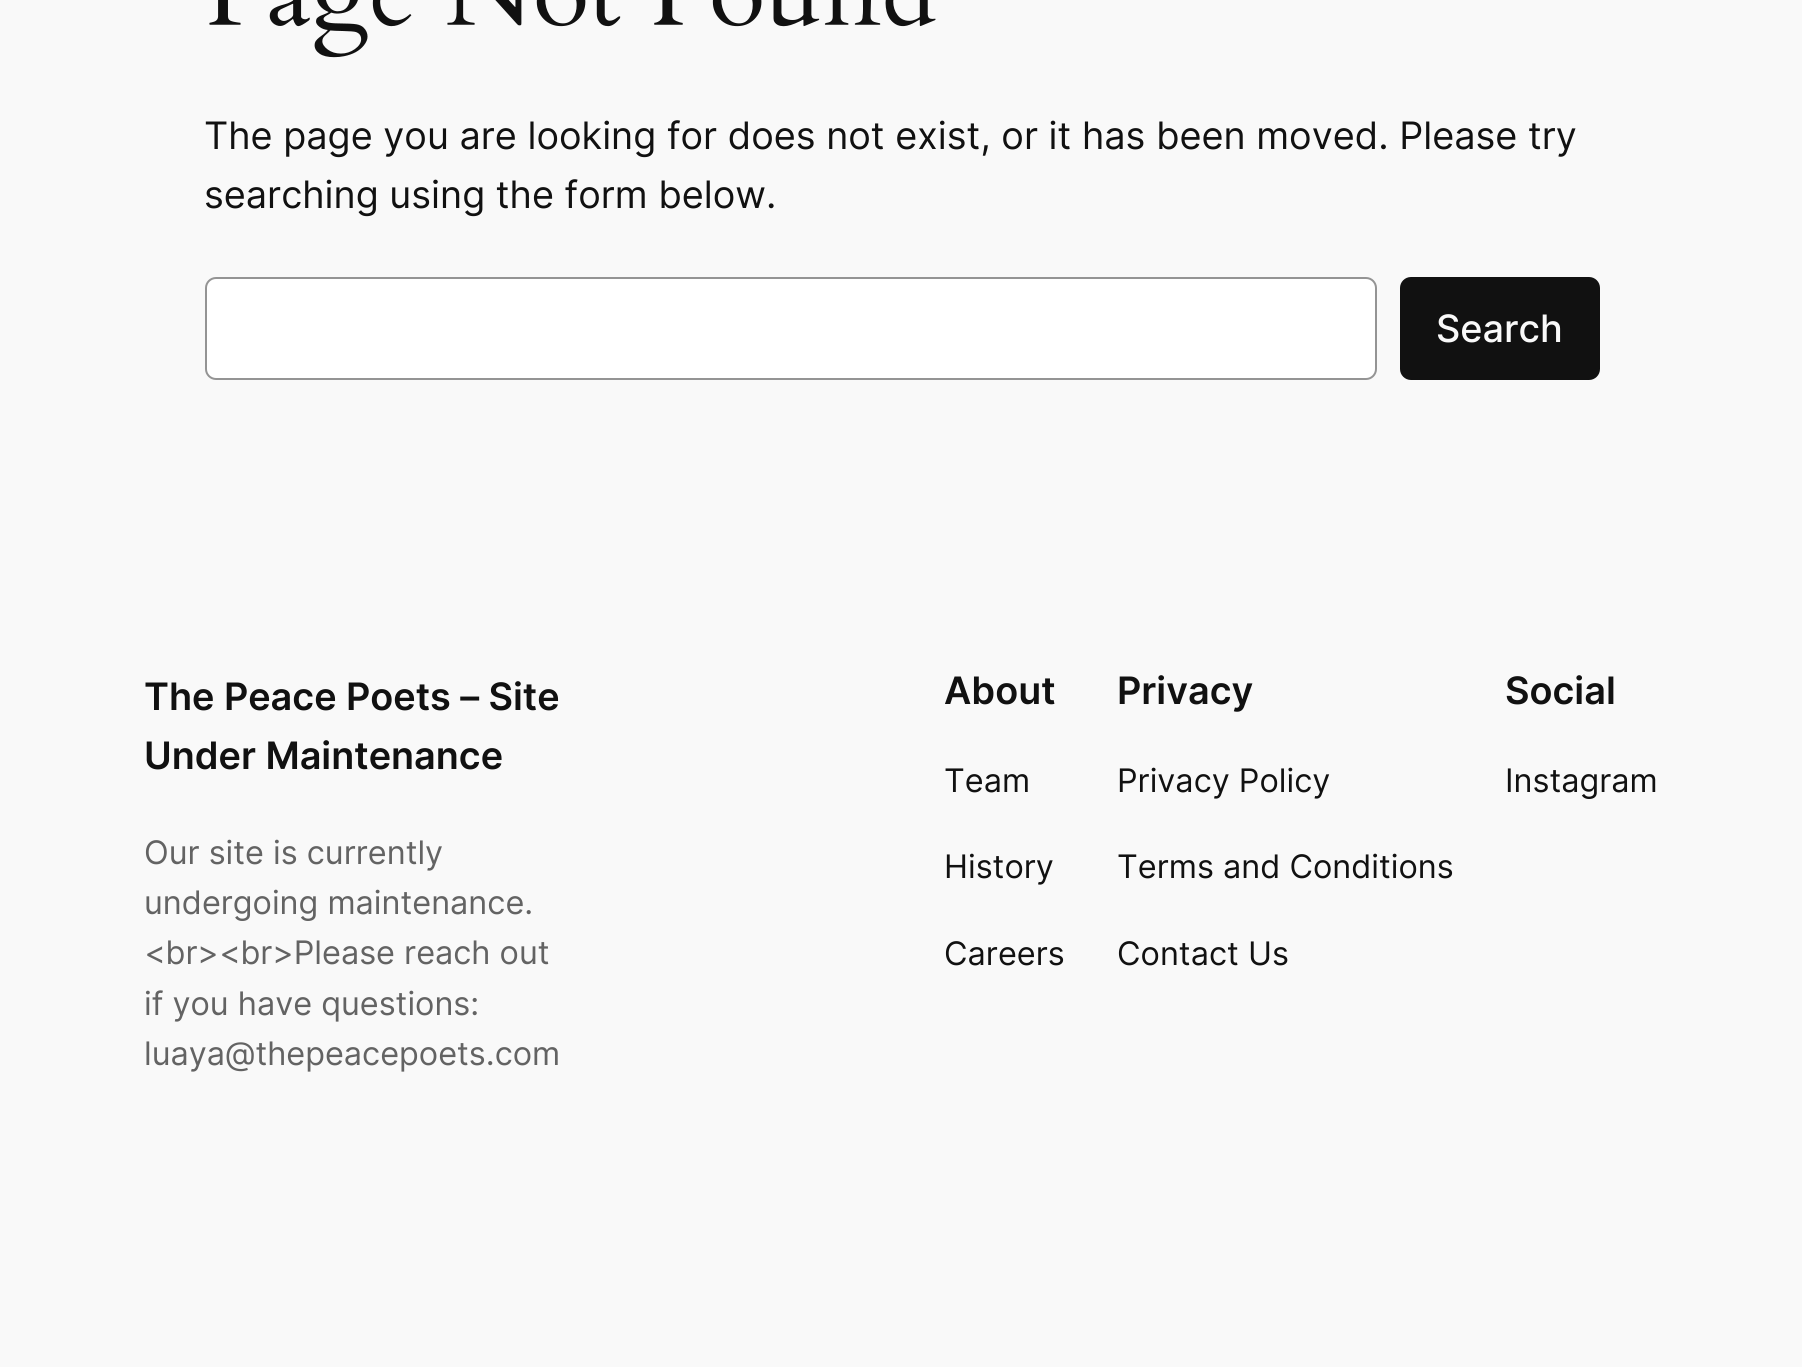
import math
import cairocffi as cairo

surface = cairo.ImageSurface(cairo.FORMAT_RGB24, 1802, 1367)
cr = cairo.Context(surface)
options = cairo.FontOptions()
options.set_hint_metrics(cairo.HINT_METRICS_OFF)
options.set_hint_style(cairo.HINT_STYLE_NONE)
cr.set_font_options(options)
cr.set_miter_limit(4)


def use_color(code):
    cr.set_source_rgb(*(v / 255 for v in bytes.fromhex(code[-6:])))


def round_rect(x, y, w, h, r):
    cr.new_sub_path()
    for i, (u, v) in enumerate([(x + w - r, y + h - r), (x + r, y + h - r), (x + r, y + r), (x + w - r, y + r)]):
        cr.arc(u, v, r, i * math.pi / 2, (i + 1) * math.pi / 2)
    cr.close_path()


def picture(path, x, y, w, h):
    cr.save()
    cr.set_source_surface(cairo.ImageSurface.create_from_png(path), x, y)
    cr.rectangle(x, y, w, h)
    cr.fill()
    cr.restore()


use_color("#f9f9f9")
cr.paint()
picture("img1.png", 209, 0, 727, 58)
cr.select_font_face("Inter")
cr.set_font_size(37.8)
use_color("#111111")
cr.move_to(204, 149)
cr.show_text("The page you are looking for does not exist, or it has been moved. Please try")
cr.move_to(204, 208)
cr.show_text("searching using the form below.")
use_color("#ffffff")
round_rect(206, 278, 1170, 101, 10)
cr.fill_preserve()
use_color("#949494")
cr.stroke()
use_color("#111111")
round_rect(1400, 277, 200, 103, 11)
cr.fill()
cr.select_font_face("Inter Medium")
use_color("#f9f9f9")
cr.move_to(1436, 342)
cr.show_text("Search")
cr.select_font_face("Inter SemiBold")
use_color("#111111")
cr.move_to(144, 710)
cr.show_text("The Peace Poets – Site")
cr.move_to(144, 769)
cr.show_text("Under Maintenance")
cr.select_font_face("Inter")
cr.set_font_size(32.4)
use_color("#636363")
cr.move_to(144, 864)
cr.show_text("Our site is currently")
cr.move_to(144, 914)
cr.show_text("undergoing maintenance.")
cr.move_to(144, 964)
cr.show_text("<br><br>Please reach out")
cr.move_to(144, 1015)
cr.show_text("if you have questions:")
cr.move_to(144, 1065)
cr.show_text("luaya@thepeacepoets.com")
cr.select_font_face("Inter SemiBold")
cr.set_font_size(37.8)
use_color("#111111")
cr.move_to(944, 704)
cr.show_text("About")
cr.select_font_face("Inter")
cr.set_font_size(32.4)
cr.move_to(944, 792)
cr.show_text("Team")
cr.move_to(944, 878)
cr.show_text("History")
cr.move_to(944, 965)
cr.show_text("Careers")
cr.select_font_face("Inter SemiBold")
cr.set_font_size(37.8)
cr.move_to(1117, 704)
cr.show_text("Privacy")
cr.select_font_face("Inter")
cr.set_font_size(32.4)
cr.move_to(1117, 792)
cr.show_text("Privacy Policy")
cr.move_to(1117, 878)
cr.show_text("Terms and Conditions")
cr.move_to(1117, 965)
cr.show_text("Contact Us")
cr.select_font_face("Inter SemiBold")
cr.set_font_size(37.8)
cr.move_to(1505, 704)
cr.show_text("Social")
cr.select_font_face("Inter")
cr.set_font_size(32.4)
cr.move_to(1505, 792)
cr.show_text("Instagram")
surface.write_to_png("result.png")
